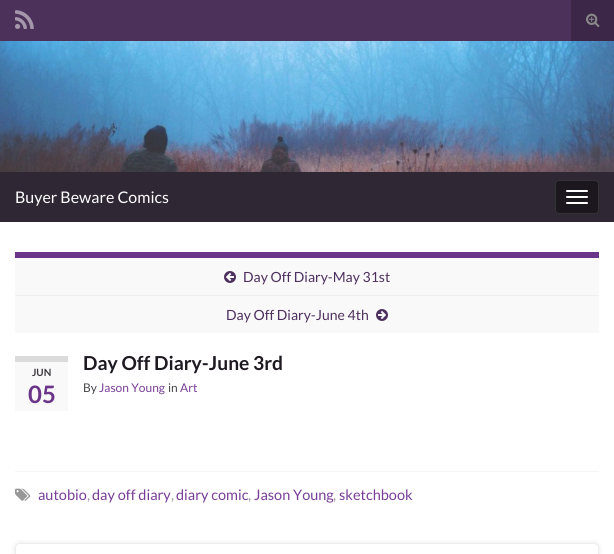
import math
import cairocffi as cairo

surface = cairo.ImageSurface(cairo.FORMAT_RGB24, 614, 554)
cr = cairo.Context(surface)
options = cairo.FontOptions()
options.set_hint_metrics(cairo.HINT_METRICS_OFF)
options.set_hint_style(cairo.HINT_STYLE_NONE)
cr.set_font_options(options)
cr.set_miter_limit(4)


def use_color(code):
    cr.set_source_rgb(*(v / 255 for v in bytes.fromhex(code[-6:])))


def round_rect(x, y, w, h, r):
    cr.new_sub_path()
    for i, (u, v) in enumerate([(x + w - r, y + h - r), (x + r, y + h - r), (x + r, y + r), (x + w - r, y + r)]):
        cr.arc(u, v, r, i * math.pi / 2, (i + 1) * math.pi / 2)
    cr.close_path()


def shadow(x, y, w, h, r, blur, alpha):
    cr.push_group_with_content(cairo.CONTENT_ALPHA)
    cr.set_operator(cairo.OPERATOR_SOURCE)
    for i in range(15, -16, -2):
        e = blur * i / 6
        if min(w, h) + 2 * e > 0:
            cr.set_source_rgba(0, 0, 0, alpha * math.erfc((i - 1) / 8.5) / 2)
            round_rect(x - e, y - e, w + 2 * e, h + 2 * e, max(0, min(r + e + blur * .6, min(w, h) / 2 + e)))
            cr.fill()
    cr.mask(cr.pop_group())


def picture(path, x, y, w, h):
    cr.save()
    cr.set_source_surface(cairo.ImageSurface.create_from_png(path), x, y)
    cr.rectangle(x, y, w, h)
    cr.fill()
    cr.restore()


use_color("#ffffff")
cr.paint()
use_color("#4c315a")
cr.rectangle(0, 0, 571, 41)
cr.fill()
picture("img1.png", 15, 10, 19, 19)
use_color("#3d2748")
cr.rectangle(571, 0, 43, 41)
cr.fill()
picture("img2.png", 586, 13, 14, 14)
picture("img3.png", 0, 41, 614, 131)
use_color("#2f2733")
cr.rectangle(0, 172, 614, 50)
cr.fill()
cr.select_font_face("Lato")
cr.set_font_size(16)
use_color("#ffffff")
cr.move_to(15, 203)
cr.show_text("Buyer Beware Comics")
use_color("#1c171f")
round_rect(555.5, 180.5, 43, 33, 3.5)
cr.fill_preserve()
use_color("#333333")
cr.set_line_width(1)
cr.stroke()
use_color("#ffffff")
round_rect(566, 190, 22, 2, 1)
cr.fill()
round_rect(566, 196, 22, 2, 1)
cr.fill()
round_rect(566, 202, 22, 2, 1)
cr.fill()
use_color("#f9f9f9")
cr.rectangle(15, 258, 584, 75)
cr.fill()
use_color("#6b3589")
cr.rectangle(15, 252, 584, 6)
cr.fill()
picture("img4.png", 224, 271, 12, 12)
cr.set_font_size(14)
use_color("#4e305e")
cr.move_to(243, 282)
cr.show_text("Day Off Diary-May 31st")
use_color("#eeeeee")
cr.rectangle(15, 295, 584, 1)
cr.fill()
use_color("#4e305e")
cr.move_to(226, 320)
cr.show_text("Day Off Diary-June 4th")
picture("img5.png", 376, 309, 12, 12)
cr.select_font_face("Lato", cairo.FONT_SLANT_NORMAL, cairo.FONT_WEIGHT_BOLD)
cr.set_font_size(19.25)
use_color("#1f1a22")
cr.move_to(83, 370)
cr.show_text("Day Off Diary-June 3rd")
use_color("#f9f9f9")
cr.rectangle(15, 362, 53, 49)
cr.fill()
use_color("#dbdbdb")
cr.rectangle(15, 356, 53, 6)
cr.fill()
cr.set_font_size(10)
use_color("#3b383d")
cr.move_to(32, 376)
cr.show_text("JUN")
cr.set_font_size(24)
use_color("#6b3589")
cr.move_to(28, 403)
cr.show_text("05")
cr.select_font_face("Lato")
cr.set_font_size(12)
use_color("#4a474b")
cr.move_to(83, 392)
cr.show_text("By")
use_color("#783d98")
cr.move_to(99, 392)
cr.show_text("Jason Young")
use_color("#4a474b")
cr.move_to(168, 392)
cr.show_text("in")
use_color("#783d98")
cr.move_to(180, 392)
cr.show_text("Art")
use_color("#f5f5f5")
cr.rectangle(15, 471, 584, 1)
cr.fill()
picture("img6.png", 15, 488, 16, 13)
cr.set_font_size(14.5)
use_color("#783d98")
cr.move_to(38, 500)
cr.show_text("autobio")
use_color("#989898")
cr.move_to(87, 500)
cr.show_text(",")
use_color("#783d98")
cr.move_to(92, 500)
cr.show_text("day off diary")
use_color("#989898")
cr.move_to(171, 500)
cr.show_text(",")
use_color("#783d98")
cr.move_to(176, 500)
cr.show_text("diary comic")
use_color("#989898")
cr.move_to(248, 500)
cr.show_text(",")
use_color("#783d98")
cr.move_to(254, 500)
cr.show_text("Jason Young")
use_color("#989898")
cr.move_to(333, 500)
cr.show_text(",")
use_color("#783d98")
cr.move_to(339, 500)
cr.show_text("sketchbook")
use_color("#000000")
shadow(15, 543, 584, 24, 5, 2.5, 0.1)
use_color("#ffffff")
round_rect(15.5, 543.5, 583, 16, 4.5)
cr.fill_preserve()
use_color("#ebedf0")
cr.stroke()
surface.write_to_png("result.png")
